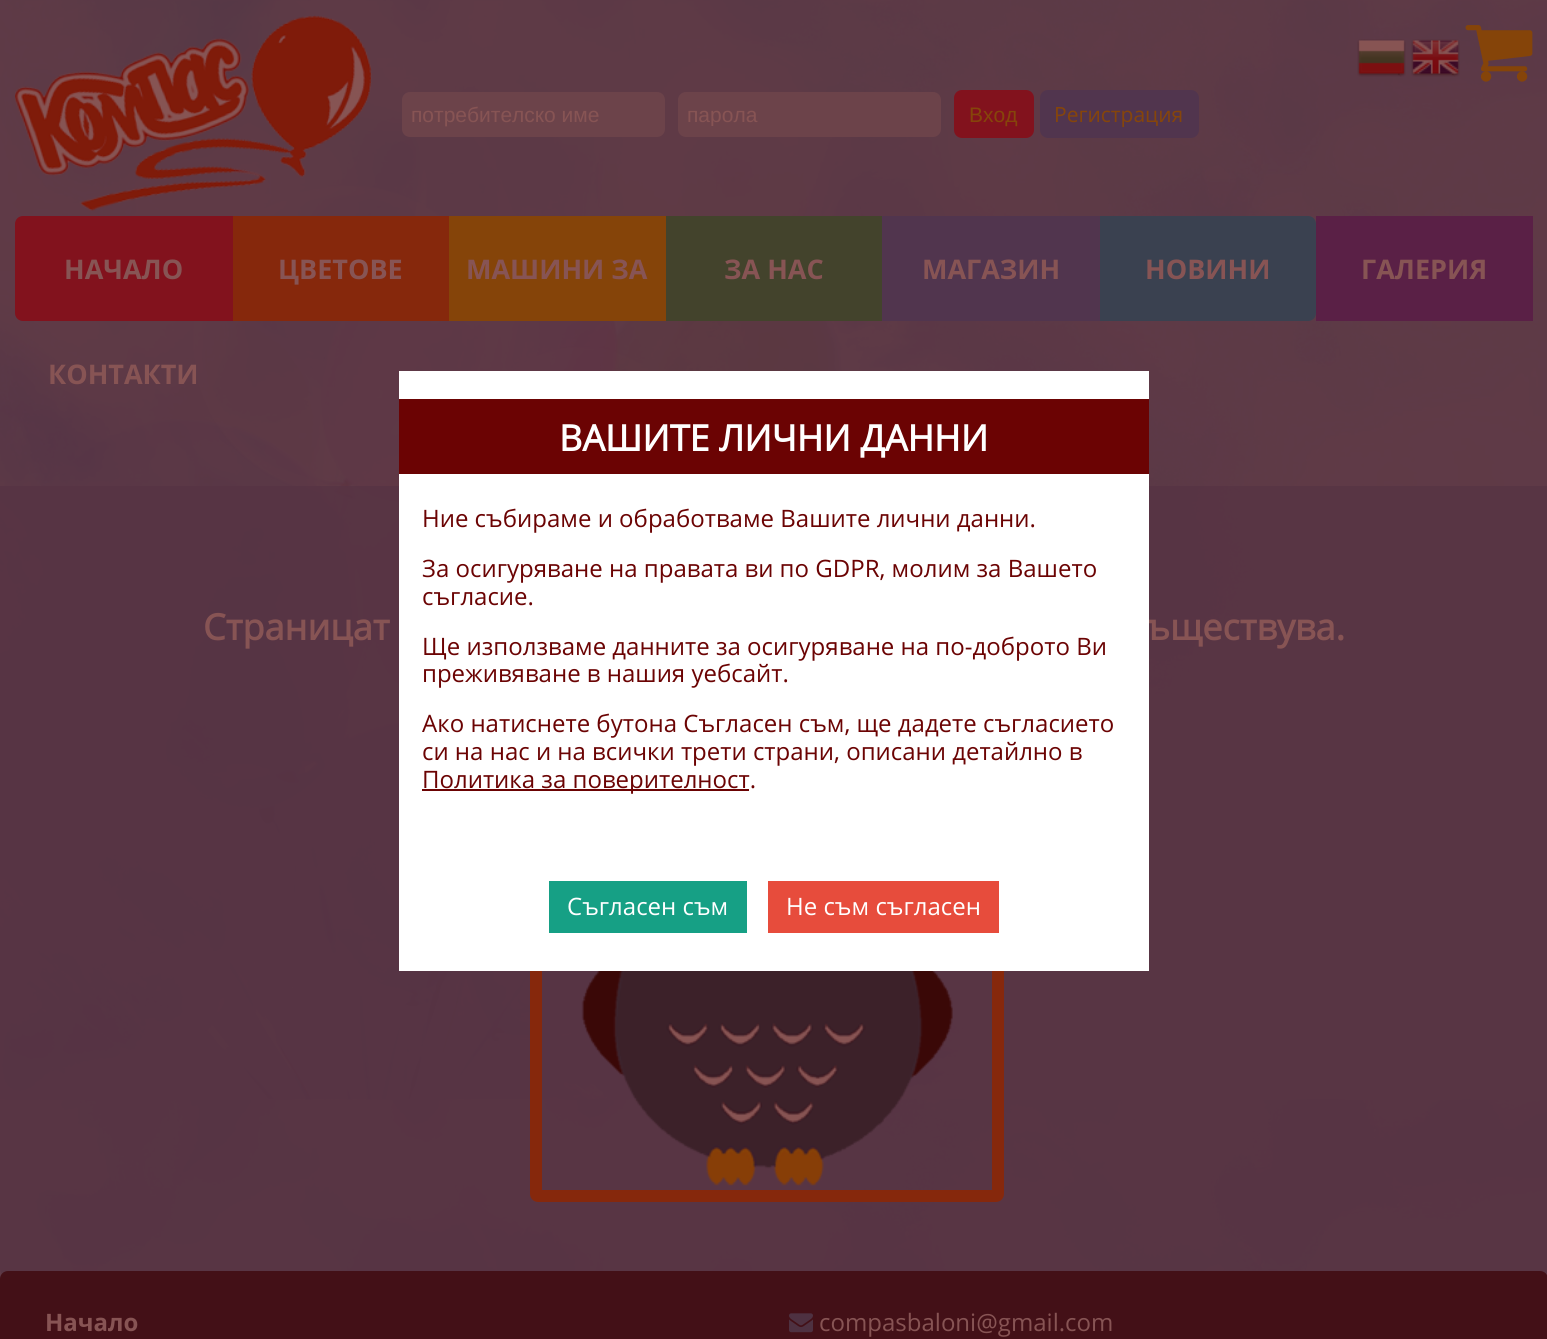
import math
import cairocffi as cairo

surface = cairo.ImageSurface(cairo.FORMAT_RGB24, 1547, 1339)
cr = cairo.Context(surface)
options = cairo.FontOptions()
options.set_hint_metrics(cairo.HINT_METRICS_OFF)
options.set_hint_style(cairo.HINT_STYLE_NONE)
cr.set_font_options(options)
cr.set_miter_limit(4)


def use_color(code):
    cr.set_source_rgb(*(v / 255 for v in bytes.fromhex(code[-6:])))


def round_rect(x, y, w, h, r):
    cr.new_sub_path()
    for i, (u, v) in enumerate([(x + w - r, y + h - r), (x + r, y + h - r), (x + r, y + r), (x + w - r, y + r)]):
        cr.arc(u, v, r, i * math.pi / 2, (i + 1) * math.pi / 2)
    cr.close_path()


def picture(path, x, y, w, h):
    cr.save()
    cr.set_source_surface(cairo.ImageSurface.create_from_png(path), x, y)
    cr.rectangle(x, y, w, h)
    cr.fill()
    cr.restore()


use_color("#ffffff")
cr.paint()
picture("img1.png", 0, 0, 1547, 1279)
picture("img2.png", 15, 15, 357, 196)
picture("img3.png", 1357, 39, 49, 38)
picture("img4.png", 1411, 39, 49, 38)
picture("img5.png", 1465, 25, 68, 57)
use_color("#6c434a")
round_rect(402, 92, 263, 45, 8)
cr.fill()
cr.select_font_face("Liberation Sans")
cr.set_font_size(21)
use_color("#875454")
cr.move_to(411, 122)
cr.show_text("потребителско име")
use_color("#6c434a")
round_rect(678, 92, 263, 45, 8)
cr.fill()
cr.save()
cr.rectangle(687, 102, 245, 24)
cr.clip()
use_color("#875454")
cr.move_to(687, 122)
cr.show_text("парола")
cr.restore()
use_color("#82121d")
round_rect(954, 90, 80, 48, 8)
cr.fill()
use_color("#86450a")
cr.move_to(969, 122)
cr.show_text("Вход")
use_color("#51354e")
round_rect(1040, 90, 159, 48, 8)
cr.fill()
cr.select_font_face("Open Sans")
use_color("#86450a")
cr.move_to(1054, 122)
cr.show_text("Регистрация")
use_color("#82121d")
cr.new_path()
cr.move_to(23, 216)
cr.line_to(233, 216)
cr.line_to(233, 321)
cr.line_to(23, 321)
cr.curve_to(18.5, 321, 15, 317.5, 15, 313)
cr.line_to(15, 224)
cr.curve_to(15, 219.5, 18.5, 216, 23, 216)
cr.close_path()
cr.fill()
cr.select_font_face("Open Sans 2", cairo.FONT_SLANT_NORMAL, cairo.FONT_WEIGHT_BOLD)
cr.set_font_size(27)
use_color("#875454")
cr.move_to(64, 279)
cr.show_text("НАЧАЛО")
use_color("#86280c")
cr.rectangle(233, 216, 216, 105)
cr.fill()
use_color("#875454")
cr.move_to(278, 279)
cr.show_text("ЦВЕТОВE")
use_color("#854409")
cr.rectangle(449, 216, 217, 105)
cr.fill()
use_color("#875454")
cr.move_to(466, 279)
cr.show_text("МАШИНИ ЗА")
use_color("#43432c")
cr.rectangle(666, 216, 216, 105)
cr.fill()
use_color("#875454")
cr.move_to(724, 279)
cr.show_text("ЗА НАС")
use_color("#51354e")
cr.rectangle(882, 216, 218, 105)
cr.fill()
use_color("#875454")
cr.move_to(922, 279)
cr.show_text("МАГАЗИН")
use_color("#3a4150")
cr.new_path()
cr.move_to(1100, 216)
cr.line_to(1308, 216)
cr.curve_to(1312.5, 216, 1316, 219.5, 1316, 224)
cr.line_to(1316, 313)
cr.curve_to(1316, 317.5, 1312.5, 321, 1308, 321)
cr.line_to(1100, 321)
cr.close_path()
cr.fill()
use_color("#875454")
cr.move_to(1145, 279)
cr.show_text("НОВИНИ")
use_color("#5a2046")
cr.rectangle(1316, 216, 217, 105)
cr.fill()
use_color("#875454")
cr.move_to(1361, 279)
cr.show_text("ГАЛЕРИЯ")
cr.move_to(48, 384)
cr.show_text("КОНТАКТИ")
cr.set_source_rgba(0.337, 0.204, 0.267, 0.8)
cr.new_path()
cr.move_to(0, 486)
cr.line_to(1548, 486)
cr.line_to(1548, 1269)
cr.curve_to(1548, 1273.5, 1544.5, 1277, 1540, 1277)
cr.line_to(8, 1277)
cr.curve_to(3.5, 1277, 0, 1273.5, 0, 1269)
cr.close_path()
cr.fill()
cr.select_font_face("Open Sans", cairo.FONT_SLANT_NORMAL, cairo.FONT_WEIGHT_BOLD)
cr.set_font_size(36)
use_color("#875454")
cr.move_to(203, 640)
cr.show_text("Страницат")
cr.move_to(1145, 640)
cr.show_text("ъществува.")
round_rect(536, 683, 462, 513, 2)
use_color("#86280c")
cr.set_line_width(12)
cr.stroke()
picture("img6.png", 581, 971, 372, 215)
use_color("#ffffff")
cr.rectangle(399, 371, 750, 600)
cr.fill()
use_color("#6b0303")
cr.rectangle(399, 399, 750, 75)
cr.fill()
use_color("#ffffff")
cr.move_to(559, 451)
cr.show_text("ВАШИТЕ ЛИЧНИ ДАННИ")
cr.select_font_face("Open Sans")
cr.set_font_size(24)
use_color("#6b0303")
cr.move_to(422, 527)
cr.show_text("Ние събираме и обработваме Вашите лични данни.")
cr.move_to(422, 577)
cr.show_text("За осигуряване на правата ви по GDPR, молим за Вашето")
cr.move_to(422, 605)
cr.show_text("съгласие.")
cr.move_to(422, 655)
cr.show_text("Ще използваме данните за осигуряване на по-доброто Ви")
cr.move_to(422, 682)
cr.show_text("преживяване в нашия уебсайт.")
cr.move_to(422, 732)
cr.show_text("Ако натиснете бутона Съгласен съм, ще дадете съгласието")
cr.move_to(422, 760)
cr.show_text("си на нас и на всички трети страни, описани детайлно в")
cr.rectangle(422, 789, 327, 2)
cr.fill()
cr.move_to(422, 788)
cr.show_text("Политика за поверителност.")
use_color("#16a085")
cr.rectangle(549, 881, 198, 52)
cr.fill()
use_color("#ffffff")
cr.move_to(567, 915)
cr.show_text("Съгласен съм")
use_color("#e74c3c")
cr.rectangle(768, 881, 231, 52)
cr.fill()
use_color("#ffffff")
cr.move_to(786, 915)
cr.show_text("Не съм съгласен")
use_color("#431017")
cr.new_path()
cr.move_to(8, 1271)
cr.line_to(1540, 1271)
cr.curve_to(1544.5, 1271, 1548, 1274.5, 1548, 1279)
cr.line_to(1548, 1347)
cr.line_to(0, 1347)
cr.line_to(0, 1279)
cr.curve_to(0, 1274.5, 3.5, 1271, 8, 1271)
cr.close_path()
cr.fill()
cr.select_font_face("Open Sans 2", cairo.FONT_SLANT_NORMAL, cairo.FONT_WEIGHT_BOLD)
use_color("#875454")
cr.move_to(45, 1331)
cr.show_text("Начало")
picture("img7.png", 789, 1313, 24, 20)
cr.select_font_face("Open Sans")
cr.move_to(819, 1331)
cr.show_text("compasbaloni@gmail.com")
surface.write_to_png("result.png")
